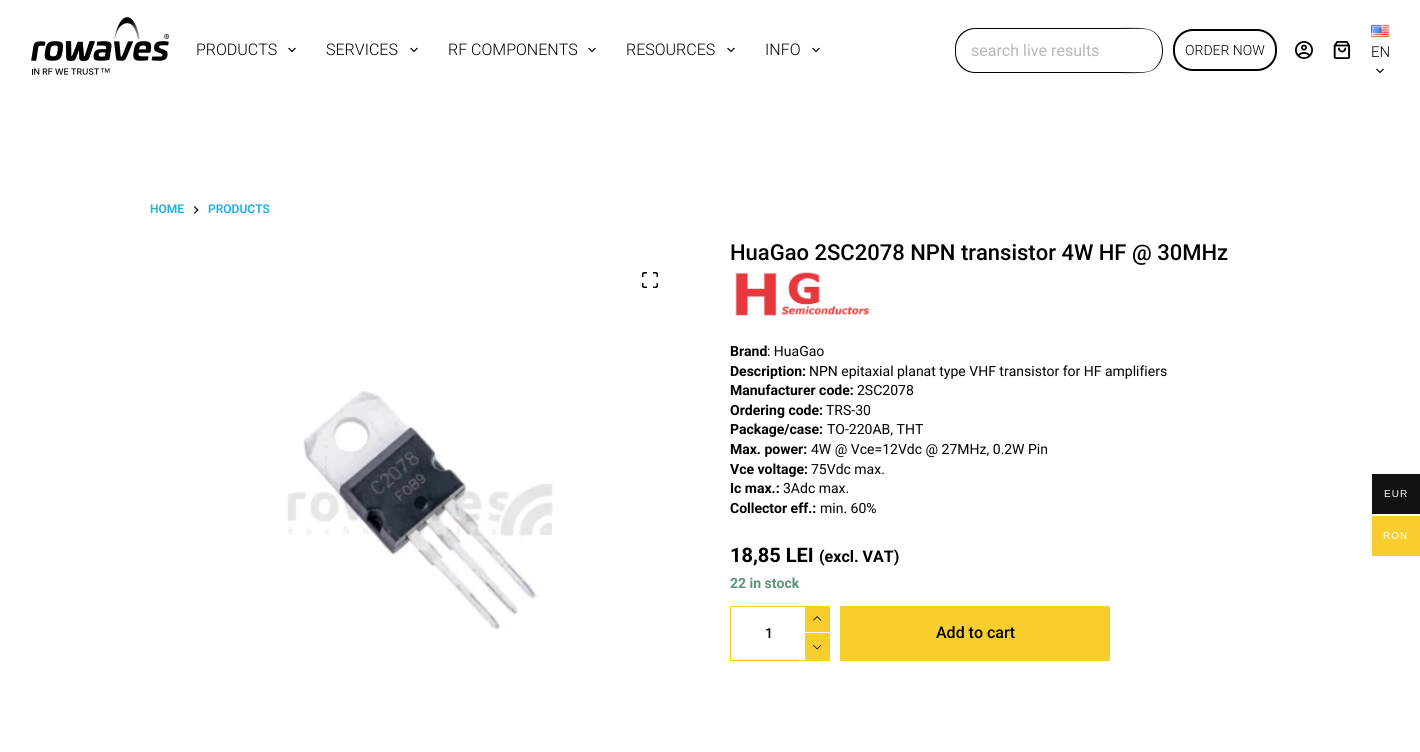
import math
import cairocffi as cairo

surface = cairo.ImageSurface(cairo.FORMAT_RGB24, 1420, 752)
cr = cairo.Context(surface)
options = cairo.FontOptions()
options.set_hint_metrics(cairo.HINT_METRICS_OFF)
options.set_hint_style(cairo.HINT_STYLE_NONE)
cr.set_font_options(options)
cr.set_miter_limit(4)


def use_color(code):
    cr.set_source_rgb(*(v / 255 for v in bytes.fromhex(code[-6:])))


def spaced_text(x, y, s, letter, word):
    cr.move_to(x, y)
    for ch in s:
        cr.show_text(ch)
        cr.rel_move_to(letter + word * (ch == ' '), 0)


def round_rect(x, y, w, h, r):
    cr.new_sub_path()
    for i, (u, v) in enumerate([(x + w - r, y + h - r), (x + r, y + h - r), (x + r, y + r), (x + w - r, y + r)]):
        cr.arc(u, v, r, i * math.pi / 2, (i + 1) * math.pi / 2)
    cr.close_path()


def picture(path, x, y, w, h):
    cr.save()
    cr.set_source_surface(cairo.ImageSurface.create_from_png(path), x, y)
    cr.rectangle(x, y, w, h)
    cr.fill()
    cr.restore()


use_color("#ffffff")
cr.paint()
picture("img1.png", 31, 17, 139, 58)
cr.select_font_face("Roboto Light")
cr.set_font_size(16)
use_color("#000000")
cr.move_to(196, 55)
cr.show_text("PRODUCTS")
picture("img2.png", 288, 47, 8, 6)
cr.move_to(326, 55)
cr.show_text("SERVICES")
picture("img2.png", 410, 47, 8, 6)
cr.move_to(448, 55)
cr.show_text("RF COMPONENTS")
picture("img2.png", 588, 47, 8, 6)
cr.move_to(626, 55)
cr.show_text("RESOURCES")
picture("img2.png", 727, 47, 8, 6)
cr.move_to(765, 55)
cr.show_text("INFO")
picture("img2.png", 812, 47, 8, 6)
cr.set_fill_rule(cairo.FILL_RULE_EVEN_ODD)
cr.new_path()
cr.move_to(975, 28)
cr.line_to(1118, 28)
cr.line_to(1118, 73)
cr.line_to(975, 73)
cr.curve_to(964, 73, 955, 64, 955, 53)
cr.line_to(955, 48)
cr.curve_to(955, 37, 964, 28, 975, 28)
cr.close_path()
cr.move_to(975, 29)
cr.line_to(1118, 29)
cr.line_to(1118, 72)
cr.line_to(975, 72)
cr.curve_to(965, 72, 956, 63, 956, 53)
cr.line_to(956, 48)
cr.curve_to(956, 38, 965, 29, 975, 29)
cr.close_path()
cr.fill()
cr.select_font_face("Roboto")
use_color("#b7b7b7")
cr.move_to(971, 56)
cr.show_text("search live results")
use_color("#000000")
cr.new_path()
cr.move_to(1118, 28)
cr.curve_to(1126, 28, 1144, 27, 1151, 30)
cr.curve_to(1167, 37, 1167, 64, 1151, 71)
cr.curve_to(1144, 74, 1126, 73, 1118, 73)
cr.close_path()
cr.move_to(1118, 29)
cr.curve_to(1126, 29, 1144, 28, 1150, 30)
cr.curve_to(1166, 37, 1166, 64, 1150, 71)
cr.curve_to(1144, 73, 1126, 72, 1118, 72)
cr.close_path()
cr.fill()
round_rect(1174, 30, 102, 40, 19)
cr.stroke()
cr.select_font_face("Roboto Light")
cr.set_font_size(14)
cr.move_to(1185, 55)
cr.show_text("ORDER NOW")
picture("img3.png", 1295, 41, 18, 18)
picture("img4.png", 1333, 41, 18, 18)
picture("img5.png", 1371, 24, 19, 14)
cr.set_font_size(15)
cr.move_to(1371, 57)
cr.show_text("EN")
picture("img2.png", 1376, 68, 8, 6)
cr.select_font_face("Roboto SemiBold")
cr.set_font_size(12)
use_color("#21ace7")
cr.move_to(150, 213)
cr.show_text("HOME")
picture("img6.png", 194, 206, 5, 8)
cr.move_to(208, 213)
cr.show_text("PRODUCTS")
picture("img7.png", 642, 272, 16, 16)
picture("img8.png", 287, 391, 266, 239)
cr.select_font_face("Roboto Medium")
cr.set_font_size(22)
use_color("#000000")
cr.move_to(730, 260)
cr.show_text("HuaGao 2SC2078 NPN transistor 4W HF @ 30MHz")
picture("img9.png", 735, 272, 135, 44)
cr.select_font_face("Roboto", cairo.FONT_SLANT_NORMAL, cairo.FONT_WEIGHT_BOLD)
cr.set_font_size(14)
cr.move_to(730, 356)
cr.show_text("Brand")
cr.select_font_face("Roboto")
cr.move_to(767, 356)
cr.show_text(": HuaGao")
cr.select_font_face("Roboto", cairo.FONT_SLANT_NORMAL, cairo.FONT_WEIGHT_BOLD)
cr.move_to(730, 376)
cr.show_text("Description:")
cr.select_font_face("Roboto")
cr.move_to(809, 376)
cr.show_text("NPN epitaxial planat type VHF transistor for HF amplifiers")
cr.select_font_face("Roboto", cairo.FONT_SLANT_NORMAL, cairo.FONT_WEIGHT_BOLD)
cr.move_to(730, 395)
cr.show_text("Manufacturer code:")
cr.select_font_face("Roboto")
cr.move_to(857, 395)
cr.show_text("2SC2078")
cr.select_font_face("Roboto", cairo.FONT_SLANT_NORMAL, cairo.FONT_WEIGHT_BOLD)
cr.move_to(730, 415)
cr.show_text("Ordering code:")
cr.select_font_face("Roboto")
cr.move_to(826, 415)
cr.show_text("TRS-30")
cr.select_font_face("Roboto", cairo.FONT_SLANT_NORMAL, cairo.FONT_WEIGHT_BOLD)
cr.move_to(730, 434)
cr.show_text("Package/case:")
cr.select_font_face("Roboto")
cr.move_to(827, 434)
cr.show_text("TO-220AB, THT")
cr.select_font_face("Roboto", cairo.FONT_SLANT_NORMAL, cairo.FONT_WEIGHT_BOLD)
cr.move_to(730, 454)
cr.show_text("Max. power:")
cr.select_font_face("Roboto")
cr.move_to(811, 454)
cr.show_text("4W @ Vce=12Vdc @ 27MHz, 0.2W Pin")
cr.select_font_face("Roboto", cairo.FONT_SLANT_NORMAL, cairo.FONT_WEIGHT_BOLD)
cr.move_to(730, 474)
cr.show_text("Vce voltage:")
cr.select_font_face("Roboto")
cr.move_to(811, 474)
cr.show_text("75Vdc max.")
cr.select_font_face("Roboto", cairo.FONT_SLANT_NORMAL, cairo.FONT_WEIGHT_BOLD)
cr.move_to(730, 493)
cr.show_text("Ic max.:")
cr.select_font_face("Roboto")
cr.move_to(783, 493)
cr.show_text("3Adc max.")
cr.select_font_face("Roboto", cairo.FONT_SLANT_NORMAL, cairo.FONT_WEIGHT_BOLD)
cr.move_to(730, 513)
cr.show_text("Collector eff.:")
cr.select_font_face("Roboto")
cr.move_to(820, 513)
cr.show_text("min. 60%")
cr.select_font_face("Roboto", cairo.FONT_SLANT_NORMAL, cairo.FONT_WEIGHT_BOLD)
cr.set_font_size(20)
cr.move_to(730, 562)
cr.show_text("18,85 LEI")
cr.set_font_size(16)
cr.move_to(819, 562)
cr.show_text("(excl. VAT)")
cr.set_font_size(14)
use_color("#599675")
cr.move_to(730, 588)
cr.show_text("22 in stock")
use_color("#f7ce2c")
cr.rectangle(730, 606, 75, 1)
cr.fill()
cr.rectangle(730, 660, 75, 1)
cr.fill()
cr.rectangle(730, 606, 1, 55)
cr.fill()
cr.select_font_face("Roboto Medium")
use_color("#000000")
cr.move_to(765, 638)
cr.show_text("1")
use_color("#f7ce2c")
cr.rectangle(805, 606, 25, 26)
cr.fill()
picture("img10.png", 813, 616, 9, 5)
cr.rectangle(805, 633, 25, 28)
cr.fill()
picture("img11.png", 813, 644, 9, 6)
cr.rectangle(840, 606, 270, 55)
cr.fill()
cr.set_font_size(16)
use_color("#000000")
cr.move_to(936, 638)
cr.show_text("Add to cart")
use_color("#111111")
cr.rectangle(1372, 474, 48, 40)
cr.fill()
cr.select_font_face("Liberation Sans")
cr.set_font_size(10)
use_color("#ffffff")
spaced_text(1384, 497, "EUR", 1, 0)
use_color("#f7ce2d")
cr.rectangle(1372, 516, 48, 40)
cr.fill()
use_color("#ffffff")
spaced_text(1383, 539, "RON", 1, 0)
surface.write_to_png("result.png")
